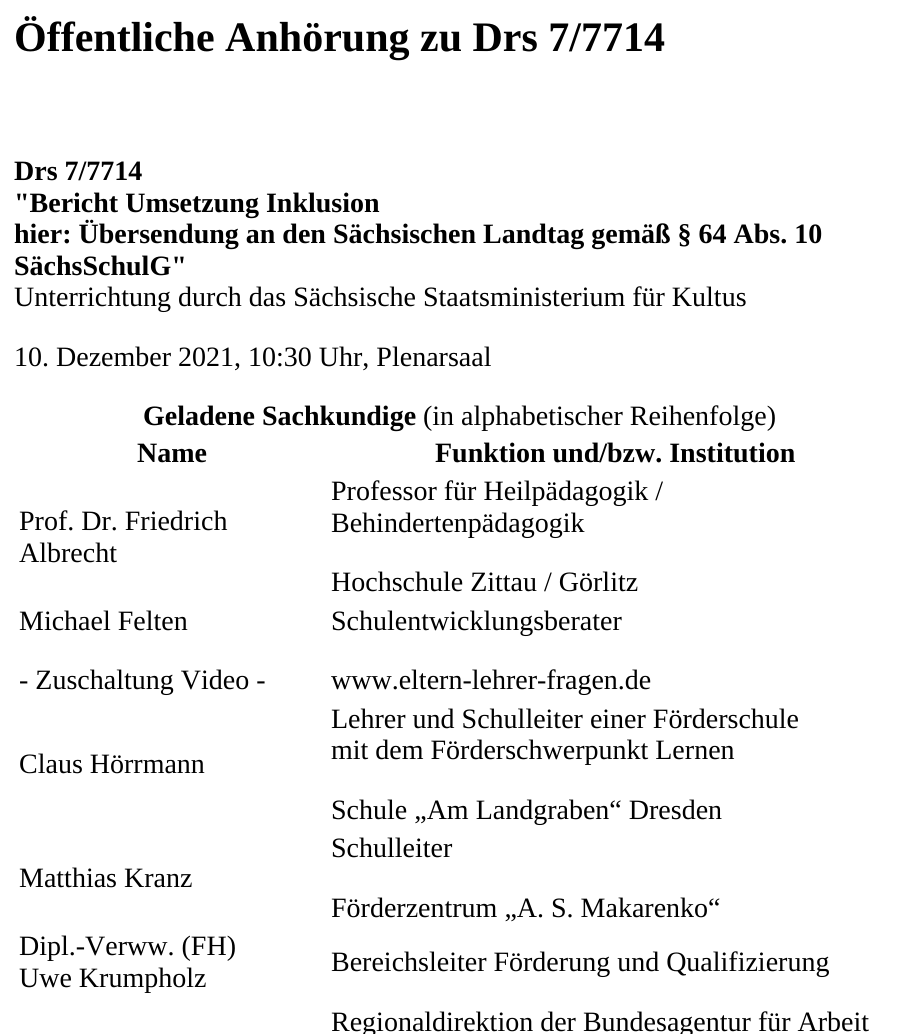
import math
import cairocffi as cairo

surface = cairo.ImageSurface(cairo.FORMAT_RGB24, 918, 1034)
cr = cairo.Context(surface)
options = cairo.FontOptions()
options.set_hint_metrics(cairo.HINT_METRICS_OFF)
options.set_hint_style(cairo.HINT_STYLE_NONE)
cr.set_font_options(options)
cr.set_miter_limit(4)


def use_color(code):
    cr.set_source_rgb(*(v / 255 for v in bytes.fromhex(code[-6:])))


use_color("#ffffff")
cr.paint()
cr.select_font_face("Liberation Serif", cairo.FONT_SLANT_NORMAL, cairo.FONT_WEIGHT_BOLD)
cr.set_font_size(42)
use_color("#000000")
cr.move_to(14, 51)
cr.show_text("Öffentliche Anhörung zu Drs 7/7714")
cr.set_font_size(28)
cr.move_to(14, 180)
cr.show_text("Drs 7/7714")
cr.move_to(14, 212)
cr.show_text("\"Bericht Umsetzung Inklusion")
cr.move_to(14, 243)
cr.show_text("hier: Übersendung an den Sächsischen Landtag gemäß § 64 Abs. 10")
cr.move_to(14, 275)
cr.show_text("SächsSchulG\"")
cr.select_font_face("Liberation Serif")
cr.move_to(14, 306)
cr.show_text("Unterrichtung durch das Sächsische Staatsministerium für Kultus")
cr.move_to(14, 366)
cr.show_text("10. Dezember 2021, 10:30 Uhr, Plenarsaal")
cr.select_font_face("Liberation Serif", cairo.FONT_SLANT_NORMAL, cairo.FONT_WEIGHT_BOLD)
cr.move_to(143, 425)
cr.show_text("Geladene Sachkundige")
cr.select_font_face("Liberation Serif")
cr.move_to(423, 425)
cr.show_text("(in alphabetischer Reihenfolge)")
cr.select_font_face("Liberation Serif", cairo.FONT_SLANT_NORMAL, cairo.FONT_WEIGHT_BOLD)
cr.move_to(137, 462)
cr.show_text("Name")
cr.move_to(435, 462)
cr.show_text("Funktion und/bzw. Institution")
cr.select_font_face("Liberation Serif")
cr.move_to(19, 530)
cr.show_text("Prof. Dr. Friedrich")
cr.move_to(19, 562)
cr.show_text("Albrecht")
cr.move_to(331, 500)
cr.show_text("Professor für Heilpädagogik /")
cr.move_to(331, 532)
cr.show_text("Behindertenpädagogik")
cr.move_to(331, 591)
cr.show_text("Hochschule Zittau / Görlitz")
cr.move_to(19, 630)
cr.show_text("Michael Felten")
cr.move_to(19, 689)
cr.show_text("- Zuschaltung Video -")
cr.move_to(331, 630)
cr.show_text("Schulentwicklungsberater")
cr.move_to(331, 689)
cr.show_text("www.eltern-lehrer-fragen.de")
cr.move_to(19, 773)
cr.show_text("Claus Hörrmann")
cr.move_to(331, 728)
cr.show_text("Lehrer und Schulleiter einer Förderschule")
cr.move_to(331, 759)
cr.show_text("mit dem Förderschwerpunkt Lernen")
cr.move_to(331, 819)
cr.show_text("Schule „Am Landgraben“ Dresden")
cr.move_to(19, 887)
cr.show_text("Matthias Kranz")
cr.move_to(331, 857)
cr.show_text("Schulleiter")
cr.move_to(331, 917)
cr.show_text("Förderzentrum „A. S. Makarenko“")
cr.move_to(19, 955)
cr.show_text("Dipl.-Verww. (FH)")
cr.move_to(19, 987)
cr.show_text("Uwe Krumpholz")
cr.move_to(331, 971)
cr.show_text("Bereichsleiter Förderung und Qualifizierung")
cr.move_to(331, 1031)
cr.show_text("Regionaldirektion der Bundesagentur für Arbeit")
surface.write_to_png("result.png")
